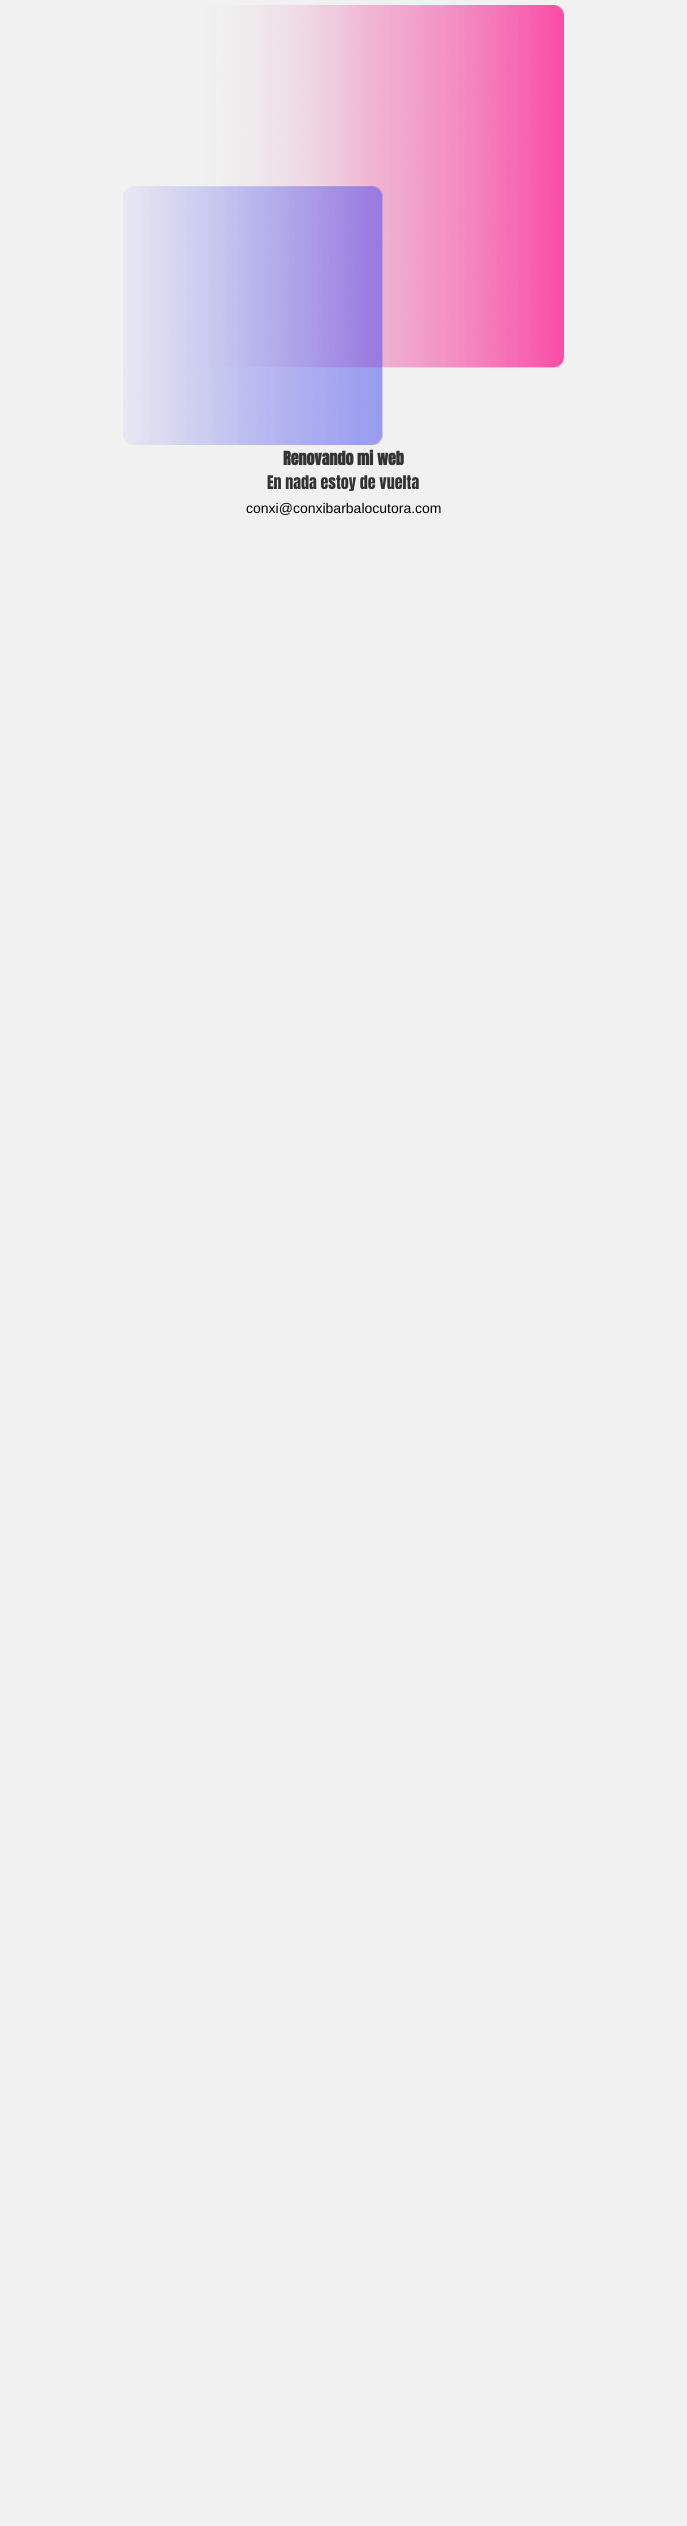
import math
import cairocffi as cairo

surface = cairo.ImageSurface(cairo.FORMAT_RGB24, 687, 2526)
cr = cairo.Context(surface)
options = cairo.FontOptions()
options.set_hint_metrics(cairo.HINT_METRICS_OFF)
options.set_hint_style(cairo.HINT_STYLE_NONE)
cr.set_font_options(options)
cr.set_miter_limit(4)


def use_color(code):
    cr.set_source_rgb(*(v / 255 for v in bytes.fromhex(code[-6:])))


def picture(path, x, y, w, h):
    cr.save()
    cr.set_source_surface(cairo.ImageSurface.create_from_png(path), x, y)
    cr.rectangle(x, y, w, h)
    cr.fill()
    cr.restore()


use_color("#f1f1f1")
cr.paint()
picture("img1.png", 123, 5, 441, 440)
cr.select_font_face("Anton", cairo.FONT_SLANT_NORMAL, cairo.FONT_WEIGHT_BOLD)
cr.set_font_size(16)
use_color("#333333")
cr.move_to(283, 465)
cr.show_text("Renovando mi web")
cr.select_font_face("Anton")
cr.move_to(267, 489)
cr.show_text("En nada estoy de vuelta")
cr.select_font_face("Liberation Sans")
cr.set_font_size(14)
use_color("#000000")
cr.move_to(246, 513)
cr.show_text("conxi@conxibarbalocutora.com")
surface.write_to_png("result.png")
